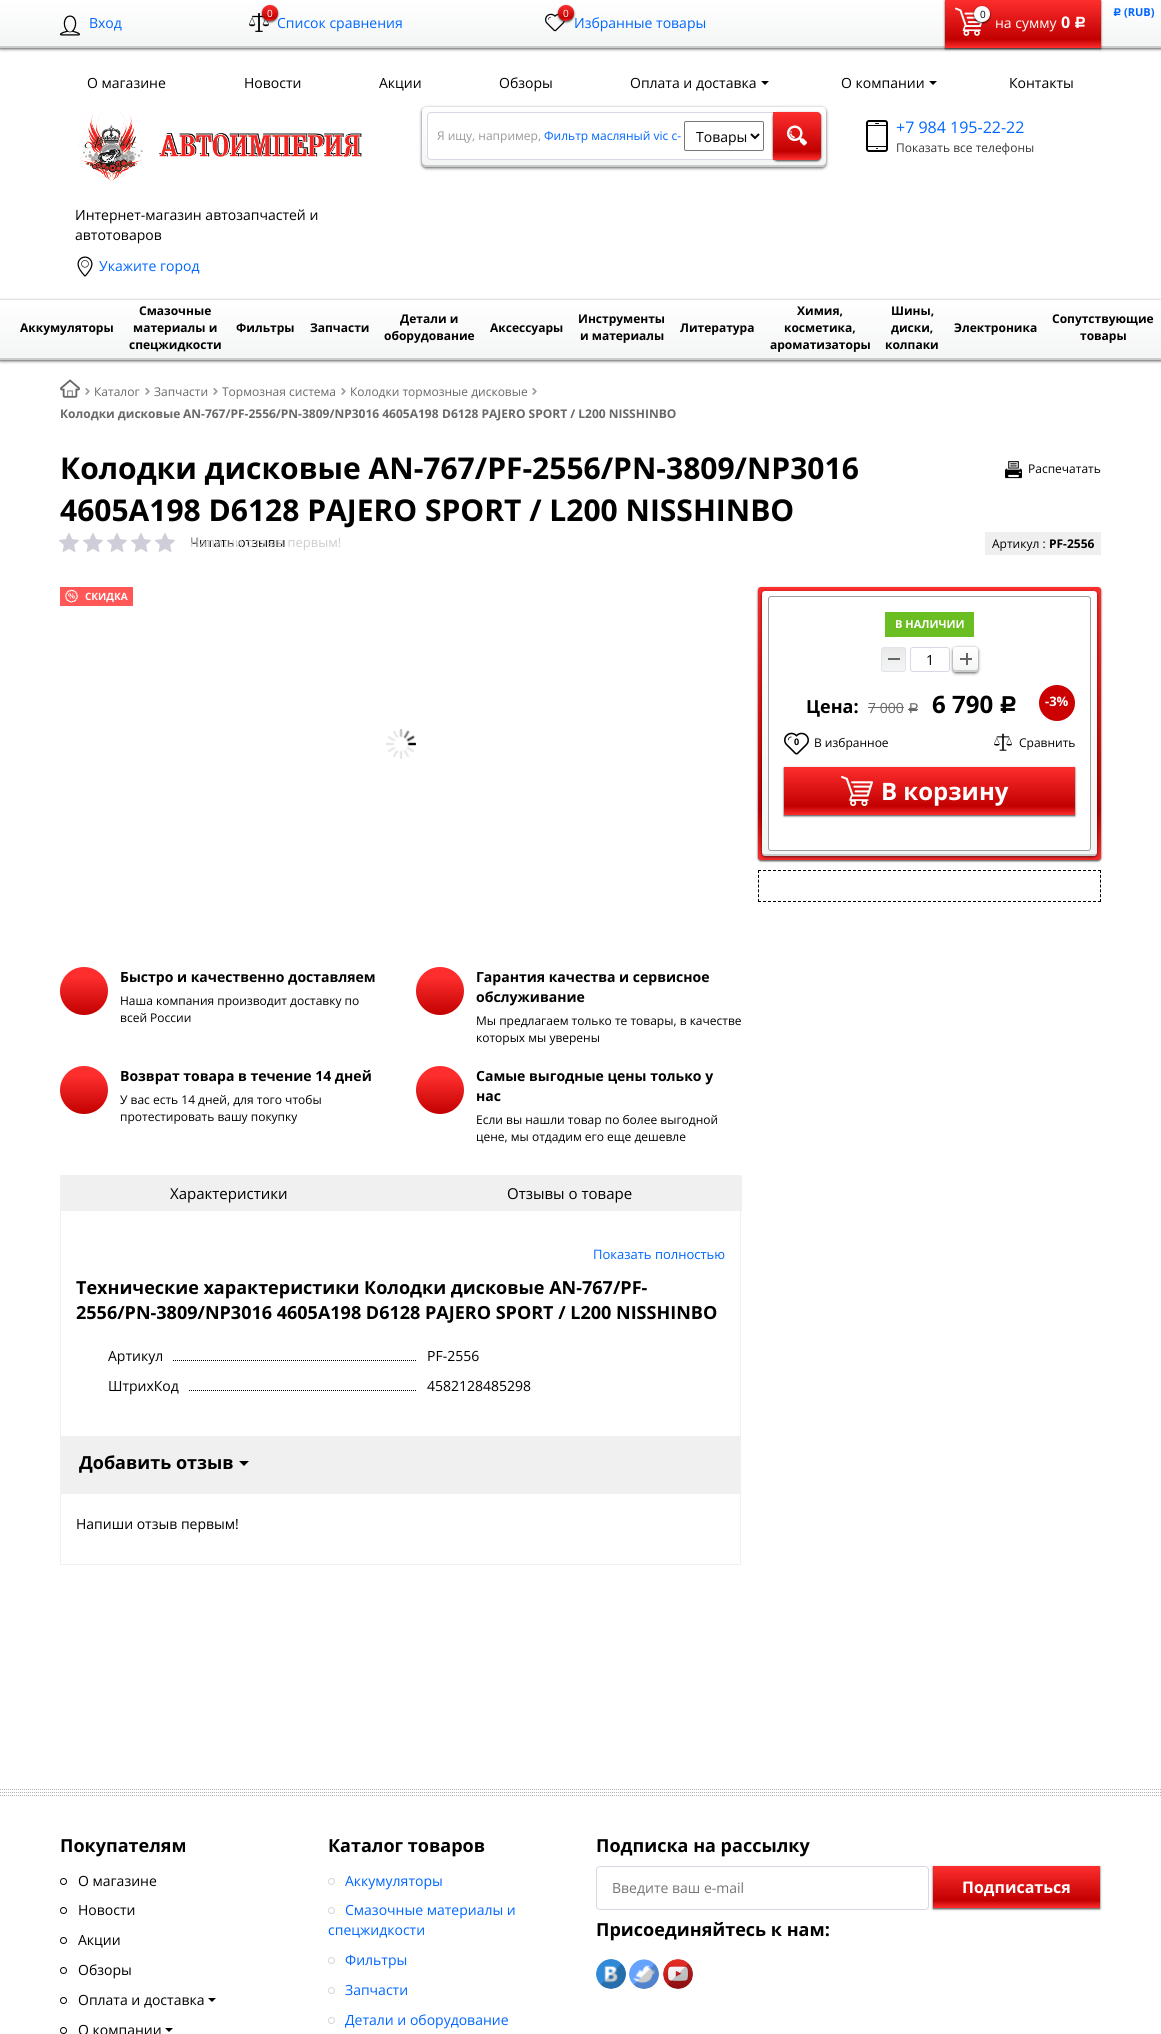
import math
import cairocffi as cairo

surface = cairo.ImageSurface(cairo.FORMAT_RGB24, 1161, 2034)
cr = cairo.Context(surface)
options = cairo.FontOptions()
options.set_hint_metrics(cairo.HINT_METRICS_OFF)
options.set_hint_style(cairo.HINT_STYLE_NONE)
cr.set_font_options(options)
cr.set_miter_limit(4)


def use_color(code):
    cr.set_source_rgb(*(v / 255 for v in bytes.fromhex(code[-6:])))


def round_rect(x, y, w, h, r):
    cr.new_sub_path()
    for i, (u, v) in enumerate([(x + w - r, y + h - r), (x + r, y + h - r), (x + r, y + r), (x + w - r, y + r)]):
        cr.arc(u, v, r, i * math.pi / 2, (i + 1) * math.pi / 2)
    cr.close_path()


def shadow(x, y, w, h, r, blur, alpha):
    cr.push_group_with_content(cairo.CONTENT_ALPHA)
    cr.set_operator(cairo.OPERATOR_SOURCE)
    for i in range(15, -16, -2):
        e = blur * i / 6
        if min(w, h) + 2 * e > 0:
            cr.set_source_rgba(0, 0, 0, alpha * math.erfc((i - 1) / 8.5) / 2)
            round_rect(x - e, y - e, w + 2 * e, h + 2 * e, max(0, min(r + e + blur * .6, min(w, h) / 2 + e)))
            cr.fill()
    cr.mask(cr.pop_group())


def picture(path, x, y, w, h):
    cr.save()
    cr.set_source_surface(cairo.ImageSurface.create_from_png(path), x, y)
    cr.rectangle(x, y, w, h)
    cr.fill()
    cr.restore()


use_color("#ffffff")
cr.paint()
use_color("#000000")
shadow(0, 1, 1161, 48, 0, 1.5, 0.66)
gradient = cairo.LinearGradient(581, 0, 581, 48)
gradient.add_color_stop_rgba(0, 1, 1, 1, 1)
gradient.add_color_stop_rgba(1, 0.953, 0.961, 0.957, 1)
cr.set_source(gradient)
cr.rectangle(0, 0, 1161, 46)
cr.fill()
use_color("#cacbcb")
cr.rectangle(0, 46, 1161, 2)
cr.fill()
picture("img1.png", 60, 15, 20, 21)
cr.select_font_face("Open Sans")
cr.set_font_size(14)
use_color("#0066ff")
cr.move_to(89, 28)
cr.show_text("Вход")
picture("img2.png", 249, 13, 20, 19)
use_color("#141311")
shadow(262, 6, 16, 16, 8, 1, 0.8)
gradient = cairo.LinearGradient(270, 21, 270, 5)
gradient.add_color_stop_rgba(0, 0.996, 0.18, 0.18, 1)
gradient.add_color_stop_rgba(0.18, 0.761, 0, 0, 1)
gradient.add_color_stop_rgba(1, 0.996, 0.18, 0.18, 1)
cr.set_source(gradient)
cr.arc(270, 13, 8, 0, 2 * math.pi)
cr.fill()
cr.set_font_size(10)
use_color("#ffffff")
cr.move_to(267, 17)
cr.show_text("0")
cr.set_font_size(14)
use_color("#0066ff")
cr.move_to(277, 28)
cr.show_text("Список сравнения")
picture("img3.png", 545, 13, 20, 19)
use_color("#141311")
shadow(558, 6, 16, 16, 8, 1, 0.8)
gradient = cairo.LinearGradient(566, 21, 566, 5)
gradient.add_color_stop_rgba(0, 0.996, 0.18, 0.18, 1)
gradient.add_color_stop_rgba(0.18, 0.761, 0, 0, 1)
gradient.add_color_stop_rgba(1, 0.996, 0.18, 0.18, 1)
cr.set_source(gradient)
cr.arc(566, 13, 8, 0, 2 * math.pi)
cr.fill()
cr.set_font_size(10)
use_color("#ffffff")
cr.move_to(563, 17)
cr.show_text("0")
cr.set_font_size(14)
use_color("#0066ff")
cr.move_to(574, 28)
cr.show_text("Избранные товары")
use_color("#141311")
shadow(945, 1, 156, 48, 0, 1, 0.8)
gradient = cairo.LinearGradient(1023, 48, 1023, 0)
gradient.add_color_stop_rgba(0, 0.996, 0.18, 0.18, 1)
gradient.add_color_stop_rgba(0.18, 0.761, 0, 0, 1)
gradient.add_color_stop_rgba(1, 0.996, 0.18, 0.18, 1)
cr.set_source(gradient)
cr.rectangle(945, 0, 156, 48)
cr.fill()
picture("img4.png", 955, 7, 28, 29)
use_color("#000000")
shadow(974, 7, 16, 16, 8, 1, 0.79)
use_color("#ffffff")
cr.arc(982, 14, 8, 0, 2 * math.pi)
cr.fill()
cr.set_font_size(10)
use_color("#000000")
cr.move_to(980, 18)
cr.show_text("0")
cr.set_font_size(14)
use_color("#ffffff")
cr.move_to(995, 28)
cr.show_text("на сумму")
cr.select_font_face("Open Sans", cairo.FONT_SLANT_NORMAL, cairo.FONT_WEIGHT_BOLD)
cr.set_font_size(16)
cr.move_to(1061, 28)
cr.show_text("0")
cr.select_font_face("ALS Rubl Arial", cairo.FONT_SLANT_NORMAL, cairo.FONT_WEIGHT_BOLD)
cr.move_to(1074, 28)
cr.show_text("Р")
cr.set_font_size(11)
use_color("#0066ff")
cr.move_to(1113, 16)
cr.show_text("Р")
cr.select_font_face("Open Sans", cairo.FONT_SLANT_NORMAL, cairo.FONT_WEIGHT_BOLD)
cr.move_to(1124, 16)
cr.show_text("(RUB)")
cr.select_font_face("Open Sans")
cr.set_font_size(14)
use_color("#000000")
cr.move_to(87, 88)
cr.show_text("О магазине")
cr.move_to(244, 88)
cr.show_text("Новости")
cr.move_to(379, 88)
cr.show_text("Акции")
cr.move_to(499, 88)
cr.show_text("Обзоры")
cr.move_to(630, 88)
cr.show_text("Оплата и доставка")
cr.new_path()
cr.move_to(761, 81)
cr.line_to(769, 81)
cr.line_to(765, 85)
cr.close_path()
cr.fill()
cr.move_to(841, 88)
cr.show_text("О компании")
cr.new_path()
cr.move_to(929, 81)
cr.line_to(937, 81)
cr.line_to(933, 85)
cr.close_path()
cr.fill()
cr.move_to(1009, 88)
cr.show_text("Контакты")
use_color("#000000")
shadow(422, 108, 404, 60, 4, 1.5, 0.66)
gradient = cairo.LinearGradient(624, 107, 624, 167)
gradient.add_color_stop_rgba(0, 1, 1, 1, 1)
gradient.add_color_stop_rgba(1, 0.953, 0.961, 0.957, 1)
cr.set_source(gradient)
round_rect(422, 107, 404, 60, 4)
cr.fill()
cr.set_source_rgba(0, 0, 0, 0.17)
cr.new_path()
cr.move_to(422, 161)
cr.curve_to(422, 164, 422, 167, 426, 167)
cr.line_to(822, 167)
cr.curve_to(826, 167, 826, 164, 826, 161)
cr.curve_to(826, 163, 824, 165, 822, 165)
cr.line_to(426, 165)
cr.curve_to(424, 165, 422, 163, 422, 161)
cr.close_path()
cr.fill()
use_color("#ffffff")
round_rect(427.5, 112.5, 393, 47, 3.5)
cr.fill_preserve()
use_color("#d9d7e5")
cr.set_line_width(1)
cr.stroke()
cr.set_font_size(12)
use_color("#999999")
cr.move_to(437, 140)
cr.show_text("Я ищу, например,")
use_color("#0066ff")
cr.move_to(544, 140)
cr.show_text("Фильтр масляный vic c-")
round_rect(684.5, 121.5, 79, 29, 1.5)
use_color("#767676")
cr.stroke()
cr.new_path()
cr.move_to(751, 134)
cr.line_to(755, 138)
cr.line_to(759, 134)
use_color("#000000")
cr.set_line_width(2)
cr.stroke()
cr.set_font_size(14)
cr.move_to(696, 142)
cr.show_text("Товары")
use_color("#141311")
shadow(773, 113, 48, 48, 4, 1, 0.8)
gradient = cairo.LinearGradient(797, 160, 797, 112)
gradient.add_color_stop_rgba(0, 0.996, 0.18, 0.18, 1)
gradient.add_color_stop_rgba(0.18, 0.761, 0, 0, 1)
gradient.add_color_stop_rgba(1, 0.996, 0.18, 0.18, 1)
cr.set_source(gradient)
cr.new_path()
cr.move_to(773, 112)
cr.line_to(817, 112)
cr.curve_to(819, 112, 821, 114, 821, 116)
cr.line_to(821, 156)
cr.curve_to(821, 158, 819, 160, 817, 160)
cr.line_to(773, 160)
cr.close_path()
cr.fill()
picture("img5.png", 787, 125, 20, 21)
picture("img6.png", 866, 120, 22, 32)
cr.set_font_size(16)
use_color("#0066ff")
cr.move_to(896, 133)
cr.show_text("+7 984 195-22-22")
cr.set_font_size(12)
use_color("#383838")
cr.move_to(896, 152)
cr.show_text("Показать все телефоны")
picture("img7.png", 78, 111, 284, 70)
cr.set_font_size(14)
use_color("#000000")
cr.move_to(75, 220)
cr.show_text("Интернет-магазин автозапчастей и")
cr.move_to(75, 240)
cr.show_text("автотоваров")
picture("img8.png", 77, 256, 16, 21)
use_color("#0066ff")
cr.move_to(99, 271)
cr.show_text("Укажите город")
use_color("#000000")
shadow(0, 301, 1161, 60, 0, 1.5, 0.66)
gradient = cairo.LinearGradient(581, 300, 581, 360)
gradient.add_color_stop_rgba(0, 1, 1, 1, 1)
gradient.add_color_stop_rgba(1, 0.953, 0.961, 0.957, 1)
cr.set_source(gradient)
cr.rectangle(0, 300, 1161, 58)
cr.fill()
use_color("#cacbcb")
cr.rectangle(0, 358, 1161, 2)
cr.fill()
cr.select_font_face("Open Sans", cairo.FONT_SLANT_NORMAL, cairo.FONT_WEIGHT_BOLD)
cr.set_font_size(12)
use_color("#000000")
cr.move_to(20, 332)
cr.show_text("Аккумуляторы")
cr.move_to(139, 315)
cr.show_text("Смазочные")
cr.move_to(133, 332)
cr.show_text("материалы и")
cr.move_to(129, 349)
cr.show_text("спецжидкости")
cr.move_to(236, 332)
cr.show_text("Фильтры")
cr.move_to(310, 332)
cr.show_text("Запчасти")
cr.move_to(400, 323)
cr.show_text("Детали и")
cr.move_to(384, 340)
cr.show_text("оборудование")
cr.move_to(490, 332)
cr.show_text("Аксессуары")
cr.move_to(578, 323)
cr.show_text("Инструменты")
cr.move_to(580, 340)
cr.show_text("и материалы")
cr.move_to(680, 332)
cr.show_text("Литература")
cr.move_to(797, 315)
cr.show_text("Химия,")
cr.move_to(784, 332)
cr.show_text("косметика,")
cr.move_to(770, 349)
cr.show_text("ароматизаторы")
cr.move_to(891, 315)
cr.show_text("Шины,")
cr.move_to(891, 332)
cr.show_text("диски,")
cr.move_to(885, 349)
cr.show_text("колпаки")
cr.move_to(954, 332)
cr.show_text("Электроника")
cr.move_to(1052, 323)
cr.show_text("Сопутствующие")
cr.move_to(1080, 340)
cr.show_text("товары")
picture("img9.png", 60, 379, 20, 19)
picture("img10.png", 85, 388, 5, 7)
cr.select_font_face("Open Sans")
use_color("#686868")
cr.move_to(94, 396)
cr.show_text("Каталог")
picture("img10.png", 145, 388, 5, 7)
cr.move_to(154, 396)
cr.show_text("Запчасти")
picture("img10.png", 213, 388, 5, 7)
cr.move_to(222, 396)
cr.show_text("Тормозная система")
picture("img10.png", 341, 388, 5, 7)
cr.move_to(350, 396)
cr.show_text("Колодки тормозные дисковые")
picture("img10.png", 532, 388, 5, 7)
cr.select_font_face("Open Sans", cairo.FONT_SLANT_NORMAL, cairo.FONT_WEIGHT_BOLD)
cr.move_to(60, 418)
cr.show_text("Колодки дисковые")
cr.move_to(183, 418)
cr.show_text("AN-767/PF-2556/PN-3809/NP3016 4605A198")
cr.move_to(442, 418)
cr.show_text("D6128 PAJERO SPORT / L200 NISSHINBO")
cr.set_font_size(30)
use_color("#000000")
cr.move_to(60, 479)
cr.show_text("Колодки дисковые AN-767/PF-2556/PN-3809/NP3016")
cr.move_to(60, 521)
cr.show_text("4605A198 D6128 PAJERO SPORT / L200 NISSHINBO")
picture("img11.png", 1005, 461, 17, 18)
cr.select_font_face("Open Sans")
cr.set_font_size(12)
cr.move_to(1028, 473)
cr.show_text("Распечатать")
picture("img12.png", 59, 533, 20, 19)
picture("img12.png", 83, 533, 20, 19)
picture("img12.png", 107, 533, 20, 19)
picture("img12.png", 131, 533, 20, 19)
picture("img12.png", 155, 533, 20, 19)
cr.set_font_size(13)
cr.move_to(190, 547)
cr.show_text("Читать отзывы")
use_color("#cdcdcd")
cr.move_to(190, 547)
cr.show_text("Напиши отзыв первым!")
use_color("#efefef")
cr.rectangle(985, 532, 116, 23)
cr.fill()
cr.set_font_size(12)
use_color("#000000")
cr.move_to(992, 548)
cr.show_text("Артикул :")
cr.select_font_face("Open Sans", cairo.FONT_SLANT_NORMAL, cairo.FONT_WEIGHT_BOLD)
cr.move_to(1049, 548)
cr.show_text("PF-2556")
use_color("#ff5656")
cr.rectangle(60, 587, 73, 19)
cr.fill()
picture("img13.png", 65, 589, 13, 14)
cr.set_font_size(10)
use_color("#ffffff")
cr.move_to(85, 600)
cr.show_text("СКИДКА")
picture("img14.png", 386, 729, 30, 30)
use_color("#141311")
shadow(758, 588, 343, 273, 3, 1, 0.8)
gradient = cairo.LinearGradient(930, 860, 930, 587)
gradient.add_color_stop_rgba(0, 0.996, 0.18, 0.18, 1)
gradient.add_color_stop_rgba(0.18, 0.761, 0, 0, 1)
gradient.add_color_stop_rgba(1, 0.996, 0.18, 0.18, 1)
cr.set_source(gradient)
round_rect(758, 587, 343, 273, 3)
cr.fill()
use_color("#000000")
shadow(762, 592, 335, 265, 3, 1.5, 0.66)
gradient = cairo.LinearGradient(930, 591, 930, 856)
gradient.add_color_stop_rgba(0, 1, 1, 1, 1)
gradient.add_color_stop_rgba(1, 0.953, 0.961, 0.957, 1)
cr.set_source(gradient)
round_rect(762, 591, 335, 265, 3)
cr.fill()
cr.set_source_rgba(0, 0, 0, 0.17)
cr.new_path()
cr.move_to(762, 851)
cr.line_to(762, 853)
cr.curve_to(762, 855, 763, 856, 765, 856)
cr.line_to(1094, 856)
cr.curve_to(1096, 856, 1097, 855, 1097, 853)
cr.line_to(1097, 851)
cr.curve_to(1097, 853, 1096, 854, 1094, 854)
cr.line_to(765, 854)
cr.curve_to(763, 854, 762, 853, 762, 851)
cr.close_path()
cr.fill()
use_color("#ffffff")
round_rect(768.5, 596.5, 322, 254, 2.5)
cr.fill_preserve()
use_color("#9e9e9e")
cr.set_line_width(1)
cr.stroke()
use_color("#6bbe22")
cr.rectangle(885, 612, 89, 25)
cr.fill()
cr.set_font_size(11)
use_color("#ffffff")
cr.move_to(895, 628)
cr.show_text("В НАЛИЧИИ")
cr.save()
round_rect(881, 647, 25, 25, 3)
cr.clip()
gradient = cairo.LinearGradient(894, 648, 894, 671)
gradient.add_color_stop_rgba(0, 0.914, 0.914, 0.914, 1)
gradient.add_color_stop_rgba(1, 0.953, 0.961, 0.957, 1)
cr.set_source(gradient)
cr.rectangle(881, 648, 25, 23)
cr.fill()
cr.restore()
round_rect(881.5, 647.5, 24, 24, 2.5)
use_color("#e2e2ea")
cr.stroke()
use_color("#666666")
cr.rectangle(888, 658, 12, 2)
cr.fill()
round_rect(910.5, 647.5, 39, 24, 2.5)
use_color("#d9d7e5")
cr.stroke()
cr.select_font_face("Open Sans")
cr.set_font_size(14)
use_color("#000000")
cr.move_to(926, 665)
cr.show_text("1")
use_color("#000000")
shadow(953, 648, 25, 25, 3, 1.5, 0.66)
gradient = cairo.LinearGradient(966, 647, 966, 672)
gradient.add_color_stop_rgba(0, 1, 1, 1, 1)
gradient.add_color_stop_rgba(1, 0.953, 0.961, 0.957, 1)
cr.set_source(gradient)
round_rect(953, 647, 25, 25, 3)
cr.fill()
use_color("#cacccb")
cr.new_path()
cr.move_to(953, 667)
cr.curve_to(953, 672, 954.5, 672, 959, 672)
cr.line_to(972, 672)
cr.curve_to(976.5, 672, 978, 672, 978, 667)
cr.curve_to(978, 669, 977, 670, 975, 670)
cr.line_to(956, 670)
cr.curve_to(954, 670, 953, 669, 953, 667)
cr.close_path()
cr.fill()
use_color("#666666")
cr.rectangle(960, 658, 12, 2)
cr.fill()
cr.rectangle(966, 653, 2, 12)
cr.fill()
cr.select_font_face("Open Sans", cairo.FONT_SLANT_NORMAL, cairo.FONT_WEIGHT_BOLD)
cr.set_font_size(18)
use_color("#000000")
cr.move_to(806, 713)
cr.show_text("Цена:")
cr.select_font_face("Open Sans")
cr.set_font_size(14)
use_color("#686868")
cr.move_to(868, 713)
cr.show_text("7 000")
use_color("#676767")
cr.rectangle(868, 707, 36, 1)
cr.fill()
cr.select_font_face("ALS Rubl Arial")
use_color("#686868")
cr.move_to(908, 713)
cr.show_text("Р")
use_color("#676767")
cr.rectangle(908, 709, 10, 1)
cr.fill()
cr.select_font_face("Open Sans", cairo.FONT_SLANT_NORMAL, cairo.FONT_WEIGHT_BOLD)
cr.set_font_size(24)
use_color("#000000")
cr.move_to(932, 713)
cr.show_text("6 790")
cr.select_font_face("ALS Rubl Arial", cairo.FONT_SLANT_NORMAL, cairo.FONT_WEIGHT_BOLD)
cr.move_to(999, 713)
cr.show_text("Р")
use_color("#cc0000")
cr.new_path()
cr.arc(1057, 703, 18, 0, 2 * math.pi)
cr.fill()
cr.select_font_face("Open Sans", cairo.FONT_SLANT_NORMAL, cairo.FONT_WEIGHT_BOLD)
cr.set_font_size(13)
use_color("#ffffff")
cr.move_to(1045, 706)
cr.show_text("-3%")
cr.set_font_size(9)
use_color("#000000")
cr.move_to(794, 745)
cr.show_text("0")
picture("img15.png", 784, 732, 25, 23)
cr.select_font_face("Open Sans")
cr.set_font_size(12)
cr.move_to(814, 747)
cr.show_text("В избранное")
picture("img16.png", 994, 733, 18, 18)
cr.move_to(1019, 747)
cr.show_text("Сравнить")
use_color("#141311")
shadow(784, 768, 291, 48, 0, 1, 0.8)
gradient = cairo.LinearGradient(930, 815, 930, 767)
gradient.add_color_stop_rgba(0, 0.996, 0.18, 0.18, 1)
gradient.add_color_stop_rgba(0.18, 0.761, 0, 0, 1)
gradient.add_color_stop_rgba(1, 0.996, 0.18, 0.18, 1)
cr.set_source(gradient)
cr.rectangle(784, 767, 291, 48)
cr.fill()
picture("img17.png", 841, 776, 32, 30)
cr.select_font_face("Open Sans", cairo.FONT_SLANT_NORMAL, cairo.FONT_WEIGHT_BOLD)
cr.set_font_size(24)
use_color("#ffffff")
cr.move_to(881, 800)
cr.show_text("В корзину")
cr.new_path()
cr.move_to(758, 870.5)
cr.line_to(1101, 870.5)
use_color("#000000")
cr.set_dash([3, 2])
cr.stroke()
cr.new_path()
cr.move_to(1100.5, 870)
cr.line_to(1100.5, 902)
cr.set_dash([3, 1.83])
cr.stroke()
cr.new_path()
cr.move_to(758, 901.5)
cr.line_to(1101, 901.5)
cr.set_dash([3, 2])
cr.stroke()
cr.new_path()
cr.move_to(758.5, 870)
cr.line_to(758.5, 902)
cr.set_dash([3, 1.83])
cr.stroke()
gradient = cairo.LinearGradient(84, 1015, 84, 967)
gradient.add_color_stop_rgba(0, 0.761, 0, 0, 1)
gradient.add_color_stop_rgba(0.8, 0.996, 0.18, 0.18, 1)
cr.set_source(gradient)
cr.arc(84, 991, 24, 0, 2 * math.pi)
cr.fill()
cr.set_font_size(14)
use_color("#000000")
cr.move_to(120, 982)
cr.show_text("Быстро и качественно доставляем")
cr.select_font_face("Open Sans")
cr.set_font_size(12)
cr.move_to(120, 1005)
cr.show_text("Наша компания производит доставку по")
cr.move_to(120, 1022)
cr.show_text("всей России")
gradient = cairo.LinearGradient(440, 1015, 440, 967)
gradient.add_color_stop_rgba(0, 0.761, 0, 0, 1)
gradient.add_color_stop_rgba(0.8, 0.996, 0.18, 0.18, 1)
cr.set_source(gradient)
cr.new_path()
cr.arc(440, 991, 24, 0, 2 * math.pi)
cr.fill()
cr.select_font_face("Open Sans", cairo.FONT_SLANT_NORMAL, cairo.FONT_WEIGHT_BOLD)
cr.set_font_size(14)
use_color("#000000")
cr.move_to(476, 982)
cr.show_text("Гарантия качества и сервисное")
cr.move_to(476, 1002)
cr.show_text("обслуживание")
cr.select_font_face("Open Sans")
cr.set_font_size(12)
cr.move_to(476, 1025)
cr.show_text("Мы предлагаем только те товары, в качестве")
cr.move_to(476, 1042)
cr.show_text("которых мы уверены")
gradient = cairo.LinearGradient(84, 1114, 84, 1066)
gradient.add_color_stop_rgba(0, 0.761, 0, 0, 1)
gradient.add_color_stop_rgba(0.8, 0.996, 0.18, 0.18, 1)
cr.set_source(gradient)
cr.new_path()
cr.arc(84, 1090, 24, 0, 2 * math.pi)
cr.fill()
cr.select_font_face("Open Sans", cairo.FONT_SLANT_NORMAL, cairo.FONT_WEIGHT_BOLD)
cr.set_font_size(14)
use_color("#000000")
cr.move_to(120, 1081)
cr.show_text("Возврат товара в течение 14 дней")
cr.select_font_face("Open Sans")
cr.set_font_size(12)
cr.move_to(120, 1104)
cr.show_text("У вас есть 14 дней, для того чтобы")
cr.move_to(120, 1121)
cr.show_text("протестировать вашу покупку")
gradient = cairo.LinearGradient(440, 1114, 440, 1066)
gradient.add_color_stop_rgba(0, 0.761, 0, 0, 1)
gradient.add_color_stop_rgba(0.8, 0.996, 0.18, 0.18, 1)
cr.set_source(gradient)
cr.new_path()
cr.arc(440, 1090, 24, 0, 2 * math.pi)
cr.fill()
cr.select_font_face("Open Sans", cairo.FONT_SLANT_NORMAL, cairo.FONT_WEIGHT_BOLD)
cr.set_font_size(14)
use_color("#000000")
cr.move_to(476, 1081)
cr.show_text("Самые выгодные цены только у")
cr.move_to(476, 1101)
cr.show_text("нас")
cr.select_font_face("Open Sans")
cr.set_font_size(12)
cr.move_to(476, 1124)
cr.show_text("Если вы нашли товар по более выгодной")
cr.move_to(476, 1141)
cr.show_text("цене, мы отдадим его еще дешевле")
cr.rectangle(60.5, 1175.5, 680, 389)
use_color("#f0f0f0")
cr.set_dash([])
cr.stroke()
cr.rectangle(61, 1176, 681, 35)
cr.fill()
cr.set_font_size(15)
use_color("#000000")
cr.move_to(170, 1199)
cr.show_text("Характеристики")
cr.move_to(507, 1199)
cr.show_text("Отзывы о товаре")
cr.set_font_size(13)
use_color("#0066ff")
cr.move_to(593, 1259)
cr.show_text("Показать полностью")
cr.select_font_face("Open Sans", cairo.FONT_SLANT_NORMAL, cairo.FONT_WEIGHT_BOLD)
cr.set_font_size(18)
use_color("#000000")
cr.move_to(76, 1294)
cr.show_text("Технические характеристики Колодки дисковые AN-767/PF-")
cr.move_to(76, 1319)
cr.show_text("2556/PN-3809/NP3016 4605A198 D6128 PAJERO SPORT / L200 NISSHINBO")
cr.select_font_face("Open Sans")
cr.set_font_size(14)
cr.move_to(108, 1361)
cr.show_text("Артикул")
cr.new_path()
cr.move_to(173, 1360.5)
cr.line_to(483, 1360.5)
cr.set_dash([1, 1])
cr.stroke()
use_color("#ffffff")
cr.rectangle(417, 1360, 65, 1)
cr.fill()
use_color("#000000")
cr.move_to(427, 1361)
cr.show_text("PF-2556")
cr.move_to(108, 1391)
cr.show_text("ШтрихКод")
cr.new_path()
cr.move_to(189, 1390.5)
cr.line_to(499, 1390.5)
cr.stroke()
use_color("#ffffff")
cr.rectangle(417, 1390, 81, 1)
cr.fill()
use_color("#000000")
cr.move_to(427, 1391)
cr.show_text("4582128485298")
use_color("#f0f0f0")
cr.rectangle(61, 1436, 679, 4)
cr.fill()
cr.rectangle(737, 1436, 3, 58)
cr.fill()
cr.rectangle(61, 1490, 679, 4)
cr.fill()
cr.rectangle(61, 1436, 3, 58)
cr.fill()
cr.rectangle(64, 1440, 673, 50)
cr.fill()
cr.select_font_face("Open Sans", cairo.FONT_SLANT_NORMAL, cairo.FONT_WEIGHT_BOLD)
cr.set_font_size(18)
use_color("#000000")
cr.move_to(79, 1469)
cr.show_text("Добавить отзыв")
cr.new_path()
cr.move_to(239, 1461)
cr.line_to(249, 1461)
cr.line_to(244, 1466)
cr.close_path()
cr.fill()
cr.select_font_face("Open Sans")
cr.set_font_size(14)
cr.move_to(76, 1529)
cr.show_text("Напиши отзыв первым!")
cr.new_path()
cr.move_to(0, 1795.5)
cr.line_to(1161, 1795.5)
use_color("#b2b2b2")
cr.stroke()
cr.new_path()
cr.move_to(0, 1789.5)
cr.line_to(1161, 1789.5)
cr.stroke()
cr.new_path()
cr.move_to(0, 1792.5)
cr.line_to(1161, 1792.5)
cr.stroke()
cr.select_font_face("Open Sans", cairo.FONT_SLANT_NORMAL, cairo.FONT_WEIGHT_BOLD)
cr.set_font_size(18)
use_color("#000000")
cr.move_to(60, 1852)
cr.show_text("Покупателям")
cr.new_path()
cr.arc(63.5, 1881.5, 3, 0, 2 * math.pi)
cr.set_dash([])
cr.stroke()
cr.select_font_face("Open Sans")
cr.set_font_size(14)
cr.move_to(78, 1886)
cr.show_text("О магазине")
cr.new_path()
cr.arc(63.5, 1910.5, 3, 0, 2 * math.pi)
cr.stroke()
cr.move_to(78, 1915)
cr.show_text("Новости")
cr.new_path()
cr.arc(63.5, 1940.5, 3, 0, 2 * math.pi)
cr.stroke()
cr.move_to(78, 1945)
cr.show_text("Акции")
cr.new_path()
cr.arc(63.5, 1970.5, 3, 0, 2 * math.pi)
cr.stroke()
cr.move_to(78, 1975)
cr.show_text("Обзоры")
cr.new_path()
cr.arc(63.5, 2000.5, 3, 0, 2 * math.pi)
cr.stroke()
cr.move_to(78, 2005)
cr.show_text("Оплата и доставка")
cr.new_path()
cr.move_to(208, 1998)
cr.line_to(216, 1998)
cr.line_to(212, 2002)
cr.close_path()
cr.fill()
cr.arc(63.5, 2030.5, 3, 0, 2 * math.pi)
cr.stroke()
cr.move_to(78, 2035)
cr.show_text("О компании")
cr.new_path()
cr.move_to(165, 2028)
cr.line_to(173, 2028)
cr.line_to(169, 2032)
cr.close_path()
cr.fill()
cr.select_font_face("Open Sans", cairo.FONT_SLANT_NORMAL, cairo.FONT_WEIGHT_BOLD)
cr.set_font_size(18)
cr.move_to(328, 1852)
cr.show_text("Каталог товаров")
cr.new_path()
cr.arc(331.5, 1881.5, 3, 0, 2 * math.pi)
use_color("#d6d6d6")
cr.stroke()
cr.select_font_face("Open Sans")
cr.set_font_size(14)
use_color("#0066ff")
cr.move_to(345, 1886)
cr.show_text("Аккумуляторы")
cr.new_path()
cr.arc(331.5, 1910.5, 3, 0, 2 * math.pi)
use_color("#d6d6d6")
cr.stroke()
use_color("#0066ff")
cr.move_to(345, 1915)
cr.show_text("Смазочные материалы и")
cr.move_to(328, 1935)
cr.show_text("спецжидкости")
cr.new_path()
cr.arc(331.5, 1960.5, 3, 0, 2 * math.pi)
use_color("#d6d6d6")
cr.stroke()
use_color("#0066ff")
cr.move_to(345, 1965)
cr.show_text("Фильтры")
cr.new_path()
cr.arc(331.5, 1990.5, 3, 0, 2 * math.pi)
use_color("#d6d6d6")
cr.stroke()
use_color("#0066ff")
cr.move_to(345, 1995)
cr.show_text("Запчасти")
cr.new_path()
cr.arc(331.5, 2020.5, 3, 0, 2 * math.pi)
use_color("#d6d6d6")
cr.stroke()
use_color("#0066ff")
cr.move_to(345, 2025)
cr.show_text("Детали и оборудование")
cr.select_font_face("Open Sans", cairo.FONT_SLANT_NORMAL, cairo.FONT_WEIGHT_BOLD)
cr.set_font_size(18)
use_color("#000000")
cr.move_to(596, 1852)
cr.show_text("Подписка на рассылку")
round_rect(596.5, 1866.5, 332, 43, 3.5)
use_color("#d9d7e5")
cr.stroke()
cr.select_font_face("Open Sans")
cr.set_font_size(14)
use_color("#757575")
cr.move_to(612, 1893)
cr.show_text("Введите ваш e-mail")
use_color("#141311")
shadow(933, 1867, 167, 42, 0, 1, 0.8)
gradient = cairo.LinearGradient(1017, 1908, 1017, 1866)
gradient.add_color_stop_rgba(0, 0.996, 0.18, 0.18, 1)
gradient.add_color_stop_rgba(0.18, 0.761, 0, 0, 1)
gradient.add_color_stop_rgba(1, 0.996, 0.18, 0.18, 1)
cr.set_source(gradient)
cr.rectangle(933, 1866, 167, 42)
cr.fill()
cr.select_font_face("Open Sans", cairo.FONT_SLANT_NORMAL, cairo.FONT_WEIGHT_BOLD)
cr.set_font_size(16)
use_color("#ffffff")
cr.move_to(962, 1893)
cr.show_text("Подписаться")
cr.set_font_size(18)
use_color("#000000")
cr.move_to(596, 1936)
cr.show_text("Присоединяйтесь к нам:")
picture("img18.png", 596, 1959, 30, 30)
picture("img19.png", 629, 1959, 30, 30)
picture("img20.png", 663, 1959, 30, 30)
cr.save()
round_rect(663, 1959, 30, 30, 15)
cr.clip()
cr.new_path()
cr.move_to(683.5, 1968.5)
cr.curve_to(690.5, 1975.5, 679.5, 1986.5, 672.5, 1979.5)
cr.set_source_rgba(0, 0, 0, 0.2)
cr.set_line_width(15)
cr.stroke()
cr.restore()
surface.write_to_png("result.png")
